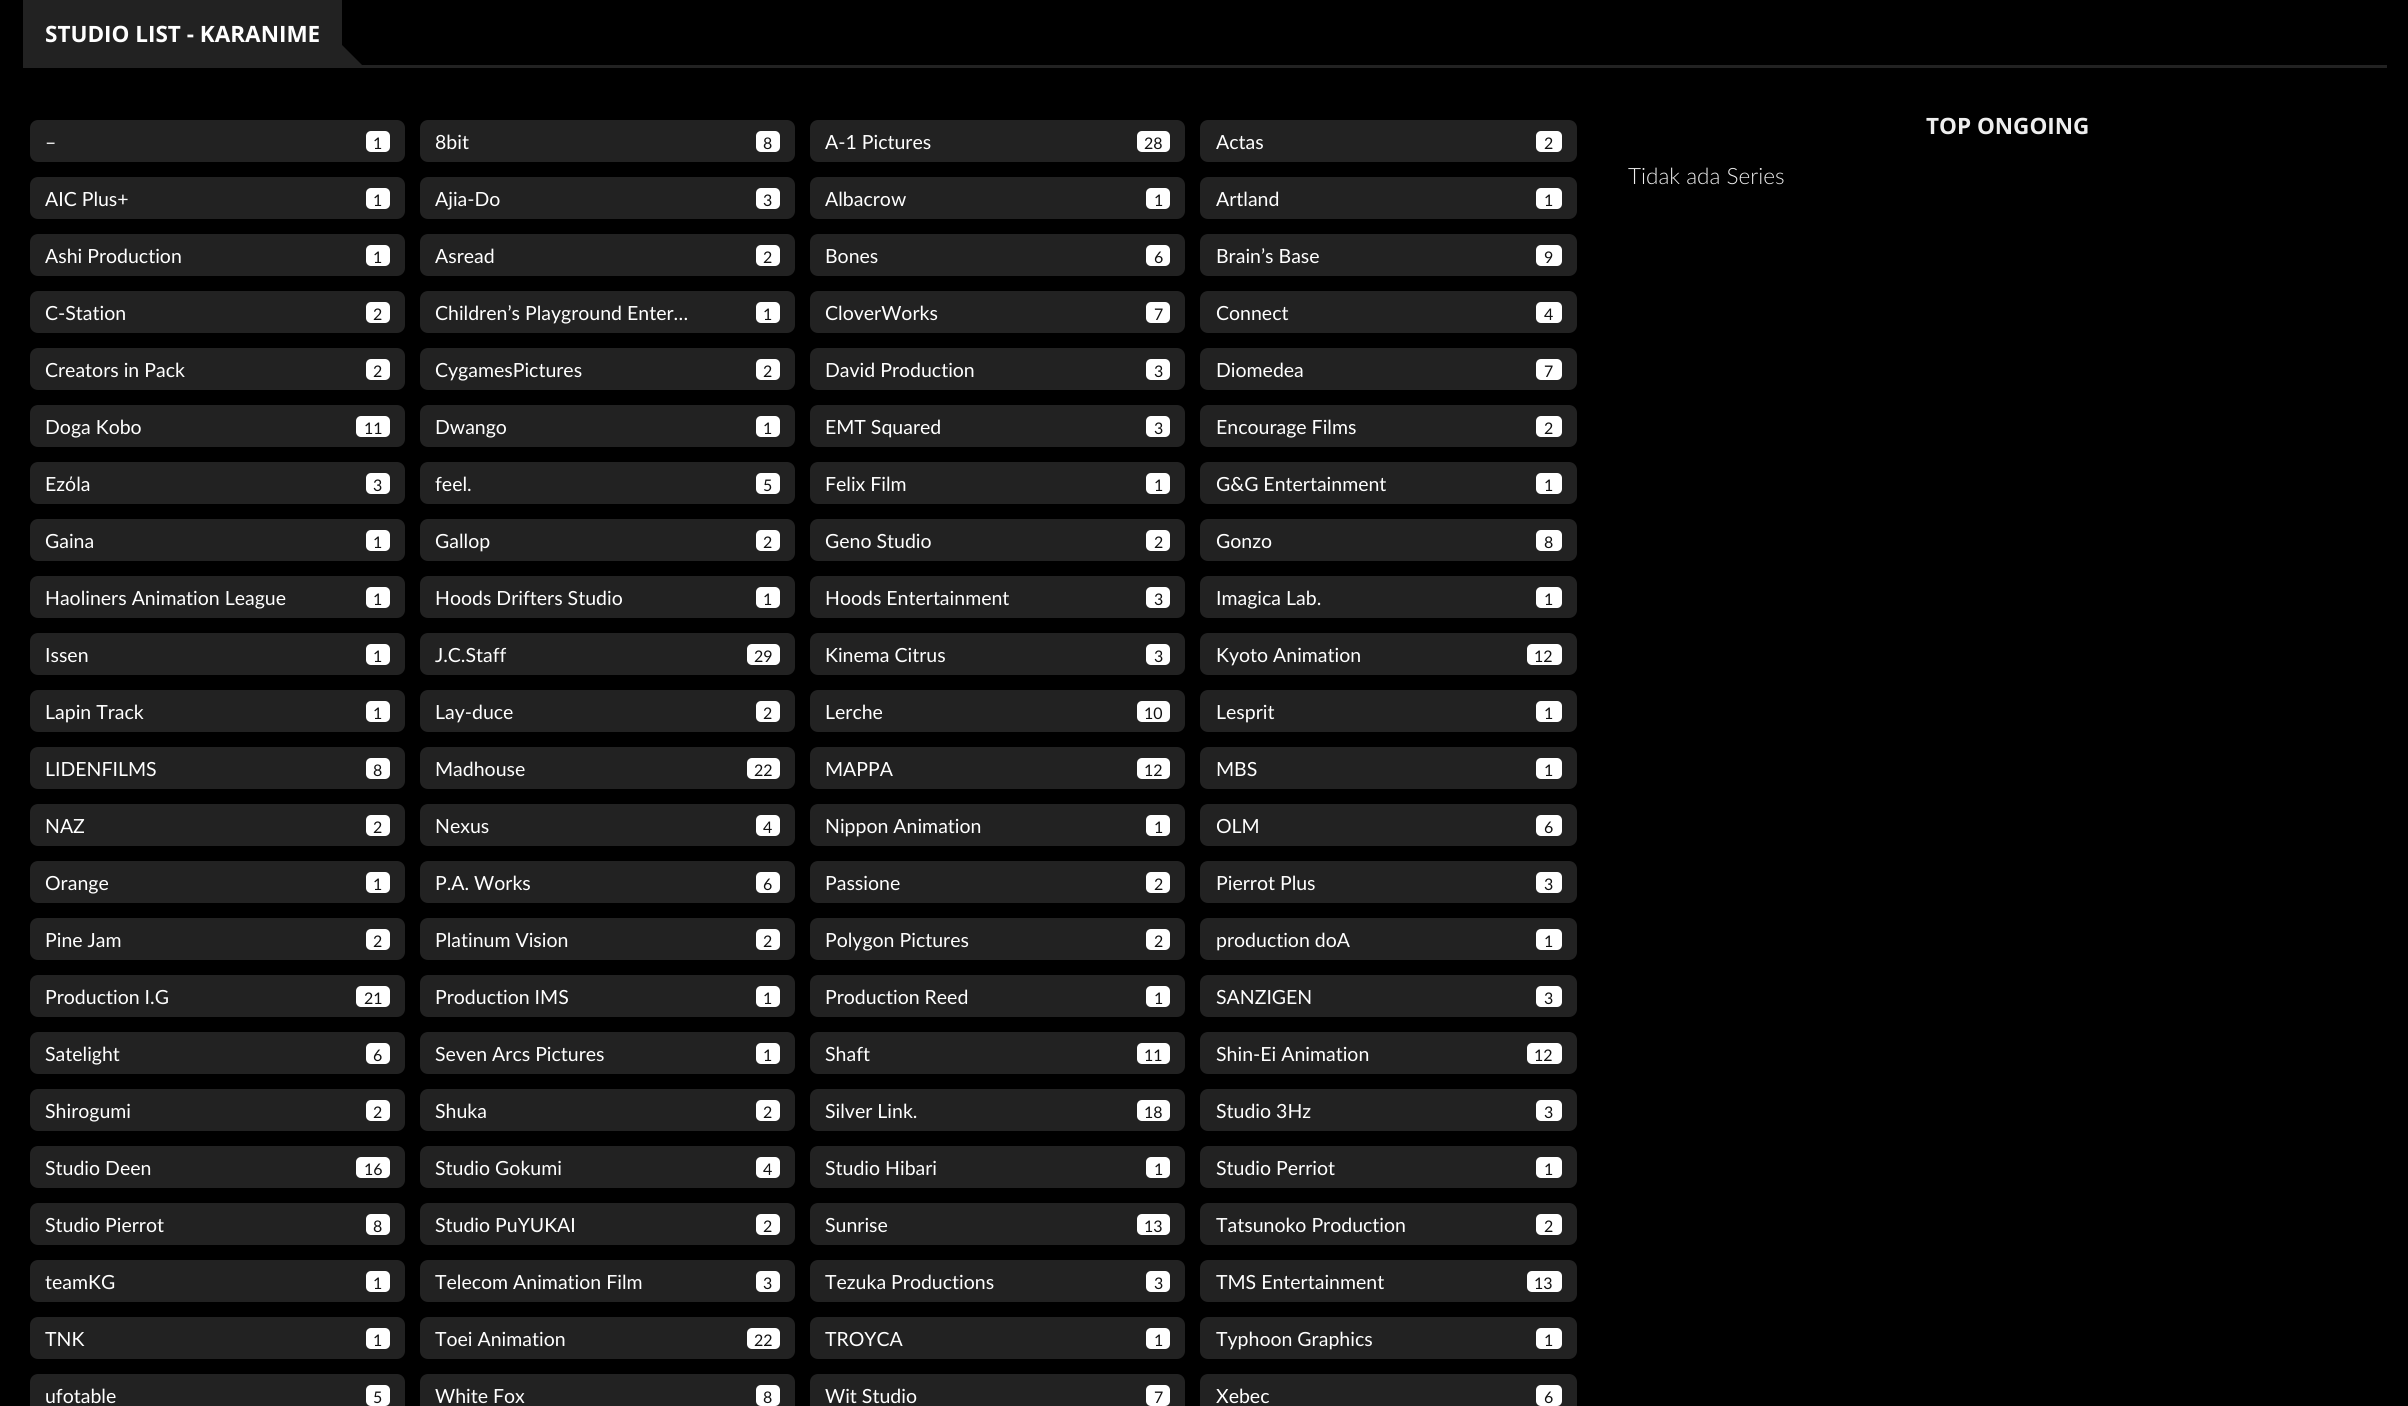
import math
import cairocffi as cairo

surface = cairo.ImageSurface(cairo.FORMAT_RGB24, 2408, 1406)
cr = cairo.Context(surface)
options = cairo.FontOptions()
options.set_hint_metrics(cairo.HINT_METRICS_OFF)
options.set_hint_style(cairo.HINT_STYLE_NONE)
cr.set_font_options(options)
cr.set_miter_limit(4)


def use_color(code):
    cr.set_source_rgb(*(v / 255 for v in bytes.fromhex(code[-6:])))


def round_rect(x, y, w, h, r):
    cr.new_sub_path()
    for i, (u, v) in enumerate([(x + w - r, y + h - r), (x + r, y + h - r), (x + r, y + r), (x + w - r, y + r)]):
        cr.arc(u, v, r, i * math.pi / 2, (i + 1) * math.pi / 2)
    cr.close_path()


use_color("#000000")
cr.paint()
use_color("#222222")
cr.rectangle(23, 0, 319, 65)
cr.fill()
cr.select_font_face("Open Sans", cairo.FONT_SLANT_NORMAL, cairo.FONT_WEIGHT_BOLD)
cr.set_font_size(22.5)
use_color("#ffffff")
cr.move_to(45, 42)
cr.show_text("STUDIO LIST - KARANIME")
use_color("#222222")
cr.new_path()
cr.move_to(342, 67.5)
cr.line_to(342, 45)
cr.line_to(364.5, 67.5)
cr.close_path()
cr.fill()
cr.rectangle(23, 65, 2364, 3)
cr.fill()
round_rect(30, 120, 375, 42, 8)
cr.fill()
cr.select_font_face("Lato")
cr.set_font_size(19.5)
use_color("#ffffff")
cr.move_to(45, 149)
cr.show_text("–")
round_rect(366, 131, 24, 21, 5)
cr.fill()
cr.set_font_size(16)
use_color("#111111")
cr.move_to(373, 149)
cr.show_text("1")
use_color("#222222")
round_rect(420, 120, 375, 42, 8)
cr.fill()
cr.set_font_size(19.5)
use_color("#ffffff")
cr.move_to(435, 149)
cr.show_text("8bit")
round_rect(756, 131, 24, 21, 5)
cr.fill()
cr.set_font_size(16)
use_color("#111111")
cr.move_to(763, 149)
cr.show_text("8")
use_color("#222222")
round_rect(810, 120, 375, 42, 8)
cr.fill()
cr.set_font_size(19.5)
use_color("#ffffff")
cr.move_to(825, 149)
cr.show_text("A-1 Pictures")
round_rect(1137, 131, 33, 21, 5)
cr.fill()
cr.set_font_size(16)
use_color("#111111")
cr.move_to(1144, 149)
cr.show_text("28")
use_color("#222222")
round_rect(1200, 120, 377, 42, 8)
cr.fill()
cr.set_font_size(19.5)
use_color("#ffffff")
cr.move_to(1216, 149)
cr.show_text("Actas")
round_rect(1536, 131, 26, 21, 5)
cr.fill()
cr.set_font_size(16)
use_color("#111111")
cr.move_to(1544, 149)
cr.show_text("2")
use_color("#222222")
round_rect(30, 177, 375, 42, 8)
cr.fill()
cr.set_font_size(19.5)
use_color("#ffffff")
cr.move_to(45, 206)
cr.show_text("AIC Plus+")
round_rect(366, 188, 24, 21, 5)
cr.fill()
cr.set_font_size(16)
use_color("#111111")
cr.move_to(373, 206)
cr.show_text("1")
use_color("#222222")
round_rect(420, 177, 375, 42, 8)
cr.fill()
cr.set_font_size(19.5)
use_color("#ffffff")
cr.move_to(435, 206)
cr.show_text("Ajia-Do")
round_rect(756, 188, 24, 21, 5)
cr.fill()
cr.set_font_size(16)
use_color("#111111")
cr.move_to(763, 206)
cr.show_text("3")
use_color("#222222")
round_rect(810, 177, 375, 42, 8)
cr.fill()
cr.set_font_size(19.5)
use_color("#ffffff")
cr.move_to(825, 206)
cr.show_text("Albacrow")
round_rect(1146, 188, 24, 21, 5)
cr.fill()
cr.set_font_size(16)
use_color("#111111")
cr.move_to(1154, 206)
cr.show_text("1")
use_color("#222222")
round_rect(1200, 177, 377, 42, 8)
cr.fill()
cr.set_font_size(19.5)
use_color("#ffffff")
cr.move_to(1216, 206)
cr.show_text("Artland")
round_rect(1536, 188, 26, 21, 5)
cr.fill()
cr.set_font_size(16)
use_color("#111111")
cr.move_to(1544, 206)
cr.show_text("1")
use_color("#222222")
round_rect(30, 234, 375, 42, 8)
cr.fill()
cr.set_font_size(19.5)
use_color("#ffffff")
cr.move_to(45, 263)
cr.show_text("Ashi Production")
round_rect(366, 245, 24, 21, 5)
cr.fill()
cr.set_font_size(16)
use_color("#111111")
cr.move_to(373, 263)
cr.show_text("1")
use_color("#222222")
round_rect(420, 234, 375, 42, 8)
cr.fill()
cr.set_font_size(19.5)
use_color("#ffffff")
cr.move_to(435, 263)
cr.show_text("Asread")
round_rect(756, 245, 24, 21, 5)
cr.fill()
cr.set_font_size(16)
use_color("#111111")
cr.move_to(763, 263)
cr.show_text("2")
use_color("#222222")
round_rect(810, 234, 375, 42, 8)
cr.fill()
cr.set_font_size(19.5)
use_color("#ffffff")
cr.move_to(825, 263)
cr.show_text("Bones")
round_rect(1146, 245, 24, 21, 5)
cr.fill()
cr.set_font_size(16)
use_color("#111111")
cr.move_to(1154, 263)
cr.show_text("6")
use_color("#222222")
round_rect(1200, 234, 377, 42, 8)
cr.fill()
cr.set_font_size(19.5)
use_color("#ffffff")
cr.move_to(1216, 263)
cr.show_text("Brain’s Base")
round_rect(1536, 245, 26, 21, 5)
cr.fill()
cr.set_font_size(16)
use_color("#111111")
cr.move_to(1544, 263)
cr.show_text("9")
use_color("#222222")
round_rect(30, 291, 375, 42, 8)
cr.fill()
cr.set_font_size(19.5)
use_color("#ffffff")
cr.move_to(45, 320)
cr.show_text("C-Station")
round_rect(366, 302, 24, 21, 5)
cr.fill()
cr.set_font_size(16)
use_color("#111111")
cr.move_to(373, 320)
cr.show_text("2")
use_color("#222222")
round_rect(420, 291, 375, 42, 8)
cr.fill()
cr.set_font_size(19.5)
use_color("#ffffff")
cr.move_to(435, 320)
cr.show_text("Children’s Playground Enter…")
round_rect(756, 302, 24, 21, 5)
cr.fill()
cr.set_font_size(16)
use_color("#111111")
cr.move_to(763, 320)
cr.show_text("1")
use_color("#222222")
round_rect(810, 291, 375, 42, 8)
cr.fill()
cr.set_font_size(19.5)
use_color("#ffffff")
cr.move_to(825, 320)
cr.show_text("CloverWorks")
round_rect(1146, 302, 24, 21, 5)
cr.fill()
cr.set_font_size(16)
use_color("#111111")
cr.move_to(1154, 320)
cr.show_text("7")
use_color("#222222")
round_rect(1200, 291, 377, 42, 8)
cr.fill()
cr.set_font_size(19.5)
use_color("#ffffff")
cr.move_to(1216, 320)
cr.show_text("Connect")
round_rect(1536, 302, 26, 21, 5)
cr.fill()
cr.set_font_size(16)
use_color("#111111")
cr.move_to(1544, 320)
cr.show_text("4")
use_color("#222222")
round_rect(30, 348, 375, 42, 8)
cr.fill()
cr.set_font_size(19.5)
use_color("#ffffff")
cr.move_to(45, 377)
cr.show_text("Creators in Pack")
round_rect(366, 359, 24, 21, 5)
cr.fill()
cr.set_font_size(16)
use_color("#111111")
cr.move_to(373, 377)
cr.show_text("2")
use_color("#222222")
round_rect(420, 348, 375, 42, 8)
cr.fill()
cr.set_font_size(19.5)
use_color("#ffffff")
cr.move_to(435, 377)
cr.show_text("CygamesPictures")
round_rect(756, 359, 24, 21, 5)
cr.fill()
cr.set_font_size(16)
use_color("#111111")
cr.move_to(763, 377)
cr.show_text("2")
use_color("#222222")
round_rect(810, 348, 375, 42, 8)
cr.fill()
cr.set_font_size(19.5)
use_color("#ffffff")
cr.move_to(825, 377)
cr.show_text("David Production")
round_rect(1146, 359, 24, 21, 5)
cr.fill()
cr.set_font_size(16)
use_color("#111111")
cr.move_to(1154, 377)
cr.show_text("3")
use_color("#222222")
round_rect(1200, 348, 377, 42, 8)
cr.fill()
cr.set_font_size(19.5)
use_color("#ffffff")
cr.move_to(1216, 377)
cr.show_text("Diomedea")
round_rect(1536, 359, 26, 21, 5)
cr.fill()
cr.set_font_size(16)
use_color("#111111")
cr.move_to(1544, 377)
cr.show_text("7")
use_color("#222222")
round_rect(30, 405, 375, 42, 8)
cr.fill()
cr.set_font_size(19.5)
use_color("#ffffff")
cr.move_to(45, 434)
cr.show_text("Doga Kobo")
round_rect(356, 416, 34, 21, 5)
cr.fill()
cr.set_font_size(16)
use_color("#111111")
cr.move_to(364, 434)
cr.show_text("11")
use_color("#222222")
round_rect(420, 405, 375, 42, 8)
cr.fill()
cr.set_font_size(19.5)
use_color("#ffffff")
cr.move_to(435, 434)
cr.show_text("Dwango")
round_rect(756, 416, 24, 21, 5)
cr.fill()
cr.set_font_size(16)
use_color("#111111")
cr.move_to(763, 434)
cr.show_text("1")
use_color("#222222")
round_rect(810, 405, 375, 42, 8)
cr.fill()
cr.set_font_size(19.5)
use_color("#ffffff")
cr.move_to(825, 434)
cr.show_text("EMT Squared")
round_rect(1146, 416, 24, 21, 5)
cr.fill()
cr.set_font_size(16)
use_color("#111111")
cr.move_to(1154, 434)
cr.show_text("3")
use_color("#222222")
round_rect(1200, 405, 377, 42, 8)
cr.fill()
cr.set_font_size(19.5)
use_color("#ffffff")
cr.move_to(1216, 434)
cr.show_text("Encourage Films")
round_rect(1536, 416, 26, 21, 5)
cr.fill()
cr.set_font_size(16)
use_color("#111111")
cr.move_to(1544, 434)
cr.show_text("2")
use_color("#222222")
round_rect(30, 462, 375, 42, 8)
cr.fill()
cr.set_font_size(19.5)
use_color("#ffffff")
cr.move_to(45, 491)
cr.show_text("Ezόla")
round_rect(366, 473, 24, 21, 5)
cr.fill()
cr.set_font_size(16)
use_color("#111111")
cr.move_to(373, 491)
cr.show_text("3")
use_color("#222222")
round_rect(420, 462, 375, 42, 8)
cr.fill()
cr.set_font_size(19.5)
use_color("#ffffff")
cr.move_to(435, 491)
cr.show_text("feel.")
round_rect(756, 473, 24, 21, 5)
cr.fill()
cr.set_font_size(16)
use_color("#111111")
cr.move_to(763, 491)
cr.show_text("5")
use_color("#222222")
round_rect(810, 462, 375, 42, 8)
cr.fill()
cr.set_font_size(19.5)
use_color("#ffffff")
cr.move_to(825, 491)
cr.show_text("Felix Film")
round_rect(1146, 473, 24, 21, 5)
cr.fill()
cr.set_font_size(16)
use_color("#111111")
cr.move_to(1154, 491)
cr.show_text("1")
use_color("#222222")
round_rect(1200, 462, 377, 42, 8)
cr.fill()
cr.set_font_size(19.5)
use_color("#ffffff")
cr.move_to(1216, 491)
cr.show_text("G&G Entertainment")
round_rect(1536, 473, 26, 21, 5)
cr.fill()
cr.set_font_size(16)
use_color("#111111")
cr.move_to(1544, 491)
cr.show_text("1")
use_color("#222222")
round_rect(30, 519, 375, 42, 8)
cr.fill()
cr.set_font_size(19.5)
use_color("#ffffff")
cr.move_to(45, 548)
cr.show_text("Gaina")
round_rect(366, 530, 24, 21, 5)
cr.fill()
cr.set_font_size(16)
use_color("#111111")
cr.move_to(373, 548)
cr.show_text("1")
use_color("#222222")
round_rect(420, 519, 375, 42, 8)
cr.fill()
cr.set_font_size(19.5)
use_color("#ffffff")
cr.move_to(435, 548)
cr.show_text("Gallop")
round_rect(756, 530, 24, 21, 5)
cr.fill()
cr.set_font_size(16)
use_color("#111111")
cr.move_to(763, 548)
cr.show_text("2")
use_color("#222222")
round_rect(810, 519, 375, 42, 8)
cr.fill()
cr.set_font_size(19.5)
use_color("#ffffff")
cr.move_to(825, 548)
cr.show_text("Geno Studio")
round_rect(1146, 530, 24, 21, 5)
cr.fill()
cr.set_font_size(16)
use_color("#111111")
cr.move_to(1154, 548)
cr.show_text("2")
use_color("#222222")
round_rect(1200, 519, 377, 42, 8)
cr.fill()
cr.set_font_size(19.5)
use_color("#ffffff")
cr.move_to(1216, 548)
cr.show_text("Gonzo")
round_rect(1536, 530, 26, 21, 5)
cr.fill()
cr.set_font_size(16)
use_color("#111111")
cr.move_to(1544, 548)
cr.show_text("8")
use_color("#222222")
round_rect(30, 576, 375, 42, 8)
cr.fill()
cr.set_font_size(19.5)
use_color("#ffffff")
cr.move_to(45, 605)
cr.show_text("Haoliners Animation League")
round_rect(366, 587, 24, 21, 5)
cr.fill()
cr.set_font_size(16)
use_color("#111111")
cr.move_to(373, 605)
cr.show_text("1")
use_color("#222222")
round_rect(420, 576, 375, 42, 8)
cr.fill()
cr.set_font_size(19.5)
use_color("#ffffff")
cr.move_to(435, 605)
cr.show_text("Hoods Drifters Studio")
round_rect(756, 587, 24, 21, 5)
cr.fill()
cr.set_font_size(16)
use_color("#111111")
cr.move_to(763, 605)
cr.show_text("1")
use_color("#222222")
round_rect(810, 576, 375, 42, 8)
cr.fill()
cr.set_font_size(19.5)
use_color("#ffffff")
cr.move_to(825, 605)
cr.show_text("Hoods Entertainment")
round_rect(1146, 587, 24, 21, 5)
cr.fill()
cr.set_font_size(16)
use_color("#111111")
cr.move_to(1154, 605)
cr.show_text("3")
use_color("#222222")
round_rect(1200, 576, 377, 42, 8)
cr.fill()
cr.set_font_size(19.5)
use_color("#ffffff")
cr.move_to(1216, 605)
cr.show_text("Imagica Lab.")
round_rect(1536, 587, 26, 21, 5)
cr.fill()
cr.set_font_size(16)
use_color("#111111")
cr.move_to(1544, 605)
cr.show_text("1")
use_color("#222222")
round_rect(30, 633, 375, 42, 8)
cr.fill()
cr.set_font_size(19.5)
use_color("#ffffff")
cr.move_to(45, 662)
cr.show_text("Issen")
round_rect(366, 644, 24, 21, 5)
cr.fill()
cr.set_font_size(16)
use_color("#111111")
cr.move_to(373, 662)
cr.show_text("1")
use_color("#222222")
round_rect(420, 633, 375, 42, 8)
cr.fill()
cr.set_font_size(19.5)
use_color("#ffffff")
cr.move_to(435, 662)
cr.show_text("J.C.Staff")
round_rect(747, 644, 33, 21, 5)
cr.fill()
cr.set_font_size(16)
use_color("#111111")
cr.move_to(754, 662)
cr.show_text("29")
use_color("#222222")
round_rect(810, 633, 375, 42, 8)
cr.fill()
cr.set_font_size(19.5)
use_color("#ffffff")
cr.move_to(825, 662)
cr.show_text("Kinema Citrus")
round_rect(1146, 644, 24, 21, 5)
cr.fill()
cr.set_font_size(16)
use_color("#111111")
cr.move_to(1154, 662)
cr.show_text("3")
use_color("#222222")
round_rect(1200, 633, 377, 42, 8)
cr.fill()
cr.set_font_size(19.5)
use_color("#ffffff")
cr.move_to(1216, 662)
cr.show_text("Kyoto Animation")
round_rect(1527, 644, 35, 21, 5)
cr.fill()
cr.set_font_size(16)
use_color("#111111")
cr.move_to(1534, 662)
cr.show_text("12")
use_color("#222222")
round_rect(30, 690, 375, 42, 8)
cr.fill()
cr.set_font_size(19.5)
use_color("#ffffff")
cr.move_to(45, 719)
cr.show_text("Lapin Track")
round_rect(366, 701, 24, 21, 5)
cr.fill()
cr.set_font_size(16)
use_color("#111111")
cr.move_to(373, 719)
cr.show_text("1")
use_color("#222222")
round_rect(420, 690, 375, 42, 8)
cr.fill()
cr.set_font_size(19.5)
use_color("#ffffff")
cr.move_to(435, 719)
cr.show_text("Lay-duce")
round_rect(756, 701, 24, 21, 5)
cr.fill()
cr.set_font_size(16)
use_color("#111111")
cr.move_to(763, 719)
cr.show_text("2")
use_color("#222222")
round_rect(810, 690, 375, 42, 8)
cr.fill()
cr.set_font_size(19.5)
use_color("#ffffff")
cr.move_to(825, 719)
cr.show_text("Lerche")
round_rect(1137, 701, 33, 21, 5)
cr.fill()
cr.set_font_size(16)
use_color("#111111")
cr.move_to(1144, 719)
cr.show_text("10")
use_color("#222222")
round_rect(1200, 690, 377, 42, 8)
cr.fill()
cr.set_font_size(19.5)
use_color("#ffffff")
cr.move_to(1216, 719)
cr.show_text("Lesprit")
round_rect(1536, 701, 26, 21, 5)
cr.fill()
cr.set_font_size(16)
use_color("#111111")
cr.move_to(1544, 719)
cr.show_text("1")
use_color("#222222")
round_rect(30, 747, 375, 42, 8)
cr.fill()
cr.set_font_size(19.5)
use_color("#ffffff")
cr.move_to(45, 776)
cr.show_text("LIDENFILMS")
round_rect(366, 758, 24, 21, 5)
cr.fill()
cr.set_font_size(16)
use_color("#111111")
cr.move_to(373, 776)
cr.show_text("8")
use_color("#222222")
round_rect(420, 747, 375, 42, 8)
cr.fill()
cr.set_font_size(19.5)
use_color("#ffffff")
cr.move_to(435, 776)
cr.show_text("Madhouse")
round_rect(747, 758, 33, 21, 5)
cr.fill()
cr.set_font_size(16)
use_color("#111111")
cr.move_to(754, 776)
cr.show_text("22")
use_color("#222222")
round_rect(810, 747, 375, 42, 8)
cr.fill()
cr.set_font_size(19.5)
use_color("#ffffff")
cr.move_to(825, 776)
cr.show_text("MAPPA")
round_rect(1137, 758, 33, 21, 5)
cr.fill()
cr.set_font_size(16)
use_color("#111111")
cr.move_to(1144, 776)
cr.show_text("12")
use_color("#222222")
round_rect(1200, 747, 377, 42, 8)
cr.fill()
cr.set_font_size(19.5)
use_color("#ffffff")
cr.move_to(1216, 776)
cr.show_text("MBS")
round_rect(1536, 758, 26, 21, 5)
cr.fill()
cr.set_font_size(16)
use_color("#111111")
cr.move_to(1544, 776)
cr.show_text("1")
use_color("#222222")
round_rect(30, 804, 375, 42, 8)
cr.fill()
cr.set_font_size(19.5)
use_color("#ffffff")
cr.move_to(45, 833)
cr.show_text("NAZ")
round_rect(366, 815, 24, 21, 5)
cr.fill()
cr.set_font_size(16)
use_color("#111111")
cr.move_to(373, 833)
cr.show_text("2")
use_color("#222222")
round_rect(420, 804, 375, 42, 8)
cr.fill()
cr.set_font_size(19.5)
use_color("#ffffff")
cr.move_to(435, 833)
cr.show_text("Nexus")
round_rect(756, 815, 24, 21, 5)
cr.fill()
cr.set_font_size(16)
use_color("#111111")
cr.move_to(763, 833)
cr.show_text("4")
use_color("#222222")
round_rect(810, 804, 375, 42, 8)
cr.fill()
cr.set_font_size(19.5)
use_color("#ffffff")
cr.move_to(825, 833)
cr.show_text("Nippon Animation")
round_rect(1146, 815, 24, 21, 5)
cr.fill()
cr.set_font_size(16)
use_color("#111111")
cr.move_to(1154, 833)
cr.show_text("1")
use_color("#222222")
round_rect(1200, 804, 377, 42, 8)
cr.fill()
cr.set_font_size(19.5)
use_color("#ffffff")
cr.move_to(1216, 833)
cr.show_text("OLM")
round_rect(1536, 815, 26, 21, 5)
cr.fill()
cr.set_font_size(16)
use_color("#111111")
cr.move_to(1544, 833)
cr.show_text("6")
use_color("#222222")
round_rect(30, 861, 375, 42, 8)
cr.fill()
cr.set_font_size(19.5)
use_color("#ffffff")
cr.move_to(45, 890)
cr.show_text("Orange")
round_rect(366, 872, 24, 21, 5)
cr.fill()
cr.set_font_size(16)
use_color("#111111")
cr.move_to(373, 890)
cr.show_text("1")
use_color("#222222")
round_rect(420, 861, 375, 42, 8)
cr.fill()
cr.set_font_size(19.5)
use_color("#ffffff")
cr.move_to(435, 890)
cr.show_text("P.A. Works")
round_rect(756, 872, 24, 21, 5)
cr.fill()
cr.set_font_size(16)
use_color("#111111")
cr.move_to(763, 890)
cr.show_text("6")
use_color("#222222")
round_rect(810, 861, 375, 42, 8)
cr.fill()
cr.set_font_size(19.5)
use_color("#ffffff")
cr.move_to(825, 890)
cr.show_text("Passione")
round_rect(1146, 872, 24, 21, 5)
cr.fill()
cr.set_font_size(16)
use_color("#111111")
cr.move_to(1154, 890)
cr.show_text("2")
use_color("#222222")
round_rect(1200, 861, 377, 42, 8)
cr.fill()
cr.set_font_size(19.5)
use_color("#ffffff")
cr.move_to(1216, 890)
cr.show_text("Pierrot Plus")
round_rect(1536, 872, 26, 21, 5)
cr.fill()
cr.set_font_size(16)
use_color("#111111")
cr.move_to(1544, 890)
cr.show_text("3")
use_color("#222222")
round_rect(30, 918, 375, 42, 8)
cr.fill()
cr.set_font_size(19.5)
use_color("#ffffff")
cr.move_to(45, 947)
cr.show_text("Pine Jam")
round_rect(366, 929, 24, 21, 5)
cr.fill()
cr.set_font_size(16)
use_color("#111111")
cr.move_to(373, 947)
cr.show_text("2")
use_color("#222222")
round_rect(420, 918, 375, 42, 8)
cr.fill()
cr.set_font_size(19.5)
use_color("#ffffff")
cr.move_to(435, 947)
cr.show_text("Platinum Vision")
round_rect(756, 929, 24, 21, 5)
cr.fill()
cr.set_font_size(16)
use_color("#111111")
cr.move_to(763, 947)
cr.show_text("2")
use_color("#222222")
round_rect(810, 918, 375, 42, 8)
cr.fill()
cr.set_font_size(19.5)
use_color("#ffffff")
cr.move_to(825, 947)
cr.show_text("Polygon Pictures")
round_rect(1146, 929, 24, 21, 5)
cr.fill()
cr.set_font_size(16)
use_color("#111111")
cr.move_to(1154, 947)
cr.show_text("2")
use_color("#222222")
round_rect(1200, 918, 377, 42, 8)
cr.fill()
cr.set_font_size(19.5)
use_color("#ffffff")
cr.move_to(1216, 947)
cr.show_text("production doA")
round_rect(1536, 929, 26, 21, 5)
cr.fill()
cr.set_font_size(16)
use_color("#111111")
cr.move_to(1544, 947)
cr.show_text("1")
use_color("#222222")
round_rect(30, 975, 375, 42, 8)
cr.fill()
cr.set_font_size(19.5)
use_color("#ffffff")
cr.move_to(45, 1004)
cr.show_text("Production I.G")
round_rect(356, 986, 34, 21, 5)
cr.fill()
cr.set_font_size(16)
use_color("#111111")
cr.move_to(364, 1004)
cr.show_text("21")
use_color("#222222")
round_rect(420, 975, 375, 42, 8)
cr.fill()
cr.set_font_size(19.5)
use_color("#ffffff")
cr.move_to(435, 1004)
cr.show_text("Production IMS")
round_rect(756, 986, 24, 21, 5)
cr.fill()
cr.set_font_size(16)
use_color("#111111")
cr.move_to(763, 1004)
cr.show_text("1")
use_color("#222222")
round_rect(810, 975, 375, 42, 8)
cr.fill()
cr.set_font_size(19.5)
use_color("#ffffff")
cr.move_to(825, 1004)
cr.show_text("Production Reed")
round_rect(1146, 986, 24, 21, 5)
cr.fill()
cr.set_font_size(16)
use_color("#111111")
cr.move_to(1154, 1004)
cr.show_text("1")
use_color("#222222")
round_rect(1200, 975, 377, 42, 8)
cr.fill()
cr.set_font_size(19.5)
use_color("#ffffff")
cr.move_to(1216, 1004)
cr.show_text("SANZIGEN")
round_rect(1536, 986, 26, 21, 5)
cr.fill()
cr.set_font_size(16)
use_color("#111111")
cr.move_to(1544, 1004)
cr.show_text("3")
use_color("#222222")
round_rect(30, 1032, 375, 42, 8)
cr.fill()
cr.set_font_size(19.5)
use_color("#ffffff")
cr.move_to(45, 1061)
cr.show_text("Satelight")
round_rect(366, 1043, 24, 21, 5)
cr.fill()
cr.set_font_size(16)
use_color("#111111")
cr.move_to(373, 1061)
cr.show_text("6")
use_color("#222222")
round_rect(420, 1032, 375, 42, 8)
cr.fill()
cr.set_font_size(19.5)
use_color("#ffffff")
cr.move_to(435, 1061)
cr.show_text("Seven Arcs Pictures")
round_rect(756, 1043, 24, 21, 5)
cr.fill()
cr.set_font_size(16)
use_color("#111111")
cr.move_to(763, 1061)
cr.show_text("1")
use_color("#222222")
round_rect(810, 1032, 375, 42, 8)
cr.fill()
cr.set_font_size(19.5)
use_color("#ffffff")
cr.move_to(825, 1061)
cr.show_text("Shaft")
round_rect(1137, 1043, 33, 21, 5)
cr.fill()
cr.set_font_size(16)
use_color("#111111")
cr.move_to(1144, 1061)
cr.show_text("11")
use_color("#222222")
round_rect(1200, 1032, 377, 42, 8)
cr.fill()
cr.set_font_size(19.5)
use_color("#ffffff")
cr.move_to(1216, 1061)
cr.show_text("Shin-Ei Animation")
round_rect(1527, 1043, 35, 21, 5)
cr.fill()
cr.set_font_size(16)
use_color("#111111")
cr.move_to(1534, 1061)
cr.show_text("12")
use_color("#222222")
round_rect(30, 1089, 375, 42, 8)
cr.fill()
cr.set_font_size(19.5)
use_color("#ffffff")
cr.move_to(45, 1118)
cr.show_text("Shirogumi")
round_rect(366, 1100, 24, 21, 5)
cr.fill()
cr.set_font_size(16)
use_color("#111111")
cr.move_to(373, 1118)
cr.show_text("2")
use_color("#222222")
round_rect(420, 1089, 375, 42, 8)
cr.fill()
cr.set_font_size(19.5)
use_color("#ffffff")
cr.move_to(435, 1118)
cr.show_text("Shuka")
round_rect(756, 1100, 24, 21, 5)
cr.fill()
cr.set_font_size(16)
use_color("#111111")
cr.move_to(763, 1118)
cr.show_text("2")
use_color("#222222")
round_rect(810, 1089, 375, 42, 8)
cr.fill()
cr.set_font_size(19.5)
use_color("#ffffff")
cr.move_to(825, 1118)
cr.show_text("Silver Link.")
round_rect(1137, 1100, 33, 21, 5)
cr.fill()
cr.set_font_size(16)
use_color("#111111")
cr.move_to(1144, 1118)
cr.show_text("18")
use_color("#222222")
round_rect(1200, 1089, 377, 42, 8)
cr.fill()
cr.set_font_size(19.5)
use_color("#ffffff")
cr.move_to(1216, 1118)
cr.show_text("Studio 3Hz")
round_rect(1536, 1100, 26, 21, 5)
cr.fill()
cr.set_font_size(16)
use_color("#111111")
cr.move_to(1544, 1118)
cr.show_text("3")
use_color("#222222")
round_rect(30, 1146, 375, 42, 8)
cr.fill()
cr.set_font_size(19.5)
use_color("#ffffff")
cr.move_to(45, 1175)
cr.show_text("Studio Deen")
round_rect(356, 1157, 34, 21, 5)
cr.fill()
cr.set_font_size(16)
use_color("#111111")
cr.move_to(364, 1175)
cr.show_text("16")
use_color("#222222")
round_rect(420, 1146, 375, 42, 8)
cr.fill()
cr.set_font_size(19.5)
use_color("#ffffff")
cr.move_to(435, 1175)
cr.show_text("Studio Gokumi")
round_rect(756, 1157, 24, 21, 5)
cr.fill()
cr.set_font_size(16)
use_color("#111111")
cr.move_to(763, 1175)
cr.show_text("4")
use_color("#222222")
round_rect(810, 1146, 375, 42, 8)
cr.fill()
cr.set_font_size(19.5)
use_color("#ffffff")
cr.move_to(825, 1175)
cr.show_text("Studio Hibari")
round_rect(1146, 1157, 24, 21, 5)
cr.fill()
cr.set_font_size(16)
use_color("#111111")
cr.move_to(1154, 1175)
cr.show_text("1")
use_color("#222222")
round_rect(1200, 1146, 377, 42, 8)
cr.fill()
cr.set_font_size(19.5)
use_color("#ffffff")
cr.move_to(1216, 1175)
cr.show_text("Studio Perriot")
round_rect(1536, 1157, 26, 21, 5)
cr.fill()
cr.set_font_size(16)
use_color("#111111")
cr.move_to(1544, 1175)
cr.show_text("1")
use_color("#222222")
round_rect(30, 1203, 375, 42, 8)
cr.fill()
cr.set_font_size(19.5)
use_color("#ffffff")
cr.move_to(45, 1232)
cr.show_text("Studio Pierrot")
round_rect(366, 1214, 24, 21, 5)
cr.fill()
cr.set_font_size(16)
use_color("#111111")
cr.move_to(373, 1232)
cr.show_text("8")
use_color("#222222")
round_rect(420, 1203, 375, 42, 8)
cr.fill()
cr.set_font_size(19.5)
use_color("#ffffff")
cr.move_to(435, 1232)
cr.show_text("Studio PuYUKAI")
round_rect(756, 1214, 24, 21, 5)
cr.fill()
cr.set_font_size(16)
use_color("#111111")
cr.move_to(763, 1232)
cr.show_text("2")
use_color("#222222")
round_rect(810, 1203, 375, 42, 8)
cr.fill()
cr.set_font_size(19.5)
use_color("#ffffff")
cr.move_to(825, 1232)
cr.show_text("Sunrise")
round_rect(1137, 1214, 33, 21, 5)
cr.fill()
cr.set_font_size(16)
use_color("#111111")
cr.move_to(1144, 1232)
cr.show_text("13")
use_color("#222222")
round_rect(1200, 1203, 377, 42, 8)
cr.fill()
cr.set_font_size(19.5)
use_color("#ffffff")
cr.move_to(1216, 1232)
cr.show_text("Tatsunoko Production")
round_rect(1536, 1214, 26, 21, 5)
cr.fill()
cr.set_font_size(16)
use_color("#111111")
cr.move_to(1544, 1232)
cr.show_text("2")
use_color("#222222")
round_rect(30, 1260, 375, 42, 8)
cr.fill()
cr.set_font_size(19.5)
use_color("#ffffff")
cr.move_to(45, 1289)
cr.show_text("teamKG")
round_rect(366, 1271, 24, 21, 5)
cr.fill()
cr.set_font_size(16)
use_color("#111111")
cr.move_to(373, 1289)
cr.show_text("1")
use_color("#222222")
round_rect(420, 1260, 375, 42, 8)
cr.fill()
cr.set_font_size(19.5)
use_color("#ffffff")
cr.move_to(435, 1289)
cr.show_text("Telecom Animation Film")
round_rect(756, 1271, 24, 21, 5)
cr.fill()
cr.set_font_size(16)
use_color("#111111")
cr.move_to(763, 1289)
cr.show_text("3")
use_color("#222222")
round_rect(810, 1260, 375, 42, 8)
cr.fill()
cr.set_font_size(19.5)
use_color("#ffffff")
cr.move_to(825, 1289)
cr.show_text("Tezuka Productions")
round_rect(1146, 1271, 24, 21, 5)
cr.fill()
cr.set_font_size(16)
use_color("#111111")
cr.move_to(1154, 1289)
cr.show_text("3")
use_color("#222222")
round_rect(1200, 1260, 377, 42, 8)
cr.fill()
cr.set_font_size(19.5)
use_color("#ffffff")
cr.move_to(1216, 1289)
cr.show_text("TMS Entertainment")
round_rect(1527, 1271, 35, 21, 5)
cr.fill()
cr.set_font_size(16)
use_color("#111111")
cr.move_to(1534, 1289)
cr.show_text("13")
use_color("#222222")
round_rect(30, 1317, 375, 42, 8)
cr.fill()
cr.set_font_size(19.5)
use_color("#ffffff")
cr.move_to(45, 1346)
cr.show_text("TNK")
round_rect(366, 1328, 24, 21, 5)
cr.fill()
cr.set_font_size(16)
use_color("#111111")
cr.move_to(373, 1346)
cr.show_text("1")
use_color("#222222")
round_rect(420, 1317, 375, 42, 8)
cr.fill()
cr.set_font_size(19.5)
use_color("#ffffff")
cr.move_to(435, 1346)
cr.show_text("Toei Animation")
round_rect(747, 1328, 33, 21, 5)
cr.fill()
cr.set_font_size(16)
use_color("#111111")
cr.move_to(754, 1346)
cr.show_text("22")
use_color("#222222")
round_rect(810, 1317, 375, 42, 8)
cr.fill()
cr.set_font_size(19.5)
use_color("#ffffff")
cr.move_to(825, 1346)
cr.show_text("TROYCA")
round_rect(1146, 1328, 24, 21, 5)
cr.fill()
cr.set_font_size(16)
use_color("#111111")
cr.move_to(1154, 1346)
cr.show_text("1")
use_color("#222222")
round_rect(1200, 1317, 377, 42, 8)
cr.fill()
cr.set_font_size(19.5)
use_color("#ffffff")
cr.move_to(1216, 1346)
cr.show_text("Typhoon Graphics")
round_rect(1536, 1328, 26, 21, 5)
cr.fill()
cr.set_font_size(16)
use_color("#111111")
cr.move_to(1544, 1346)
cr.show_text("1")
use_color("#222222")
round_rect(30, 1374, 375, 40, 8)
cr.fill()
cr.set_font_size(19.5)
use_color("#ffffff")
cr.move_to(45, 1403)
cr.show_text("ufotable")
round_rect(366, 1385, 24, 21, 5)
cr.fill()
cr.set_font_size(16)
use_color("#111111")
cr.move_to(373, 1403)
cr.show_text("5")
use_color("#222222")
round_rect(420, 1374, 375, 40, 8)
cr.fill()
cr.set_font_size(19.5)
use_color("#ffffff")
cr.move_to(435, 1403)
cr.show_text("White Fox")
round_rect(756, 1385, 24, 21, 5)
cr.fill()
cr.set_font_size(16)
use_color("#111111")
cr.move_to(763, 1403)
cr.show_text("8")
use_color("#222222")
round_rect(810, 1374, 375, 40, 8)
cr.fill()
cr.set_font_size(19.5)
use_color("#ffffff")
cr.move_to(825, 1403)
cr.show_text("Wit Studio")
round_rect(1146, 1385, 24, 21, 5)
cr.fill()
cr.set_font_size(16)
use_color("#111111")
cr.move_to(1154, 1403)
cr.show_text("7")
use_color("#222222")
round_rect(1200, 1374, 377, 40, 8)
cr.fill()
cr.set_font_size(19.5)
use_color("#ffffff")
cr.move_to(1216, 1403)
cr.show_text("Xebec")
round_rect(1536, 1385, 26, 21, 5)
cr.fill()
cr.set_font_size(16)
use_color("#111111")
cr.move_to(1544, 1403)
cr.show_text("6")
cr.select_font_face("Open Sans", cairo.FONT_SLANT_NORMAL, cairo.FONT_WEIGHT_BOLD)
cr.set_font_size(22.5)
use_color("#eeeeee")
cr.move_to(1926, 134)
cr.show_text("TOP ONGOING")
cr.select_font_face("Lato Light")
cr.move_to(1628, 184)
cr.show_text("Tidak ada Series")
surface.write_to_png("result.png")
